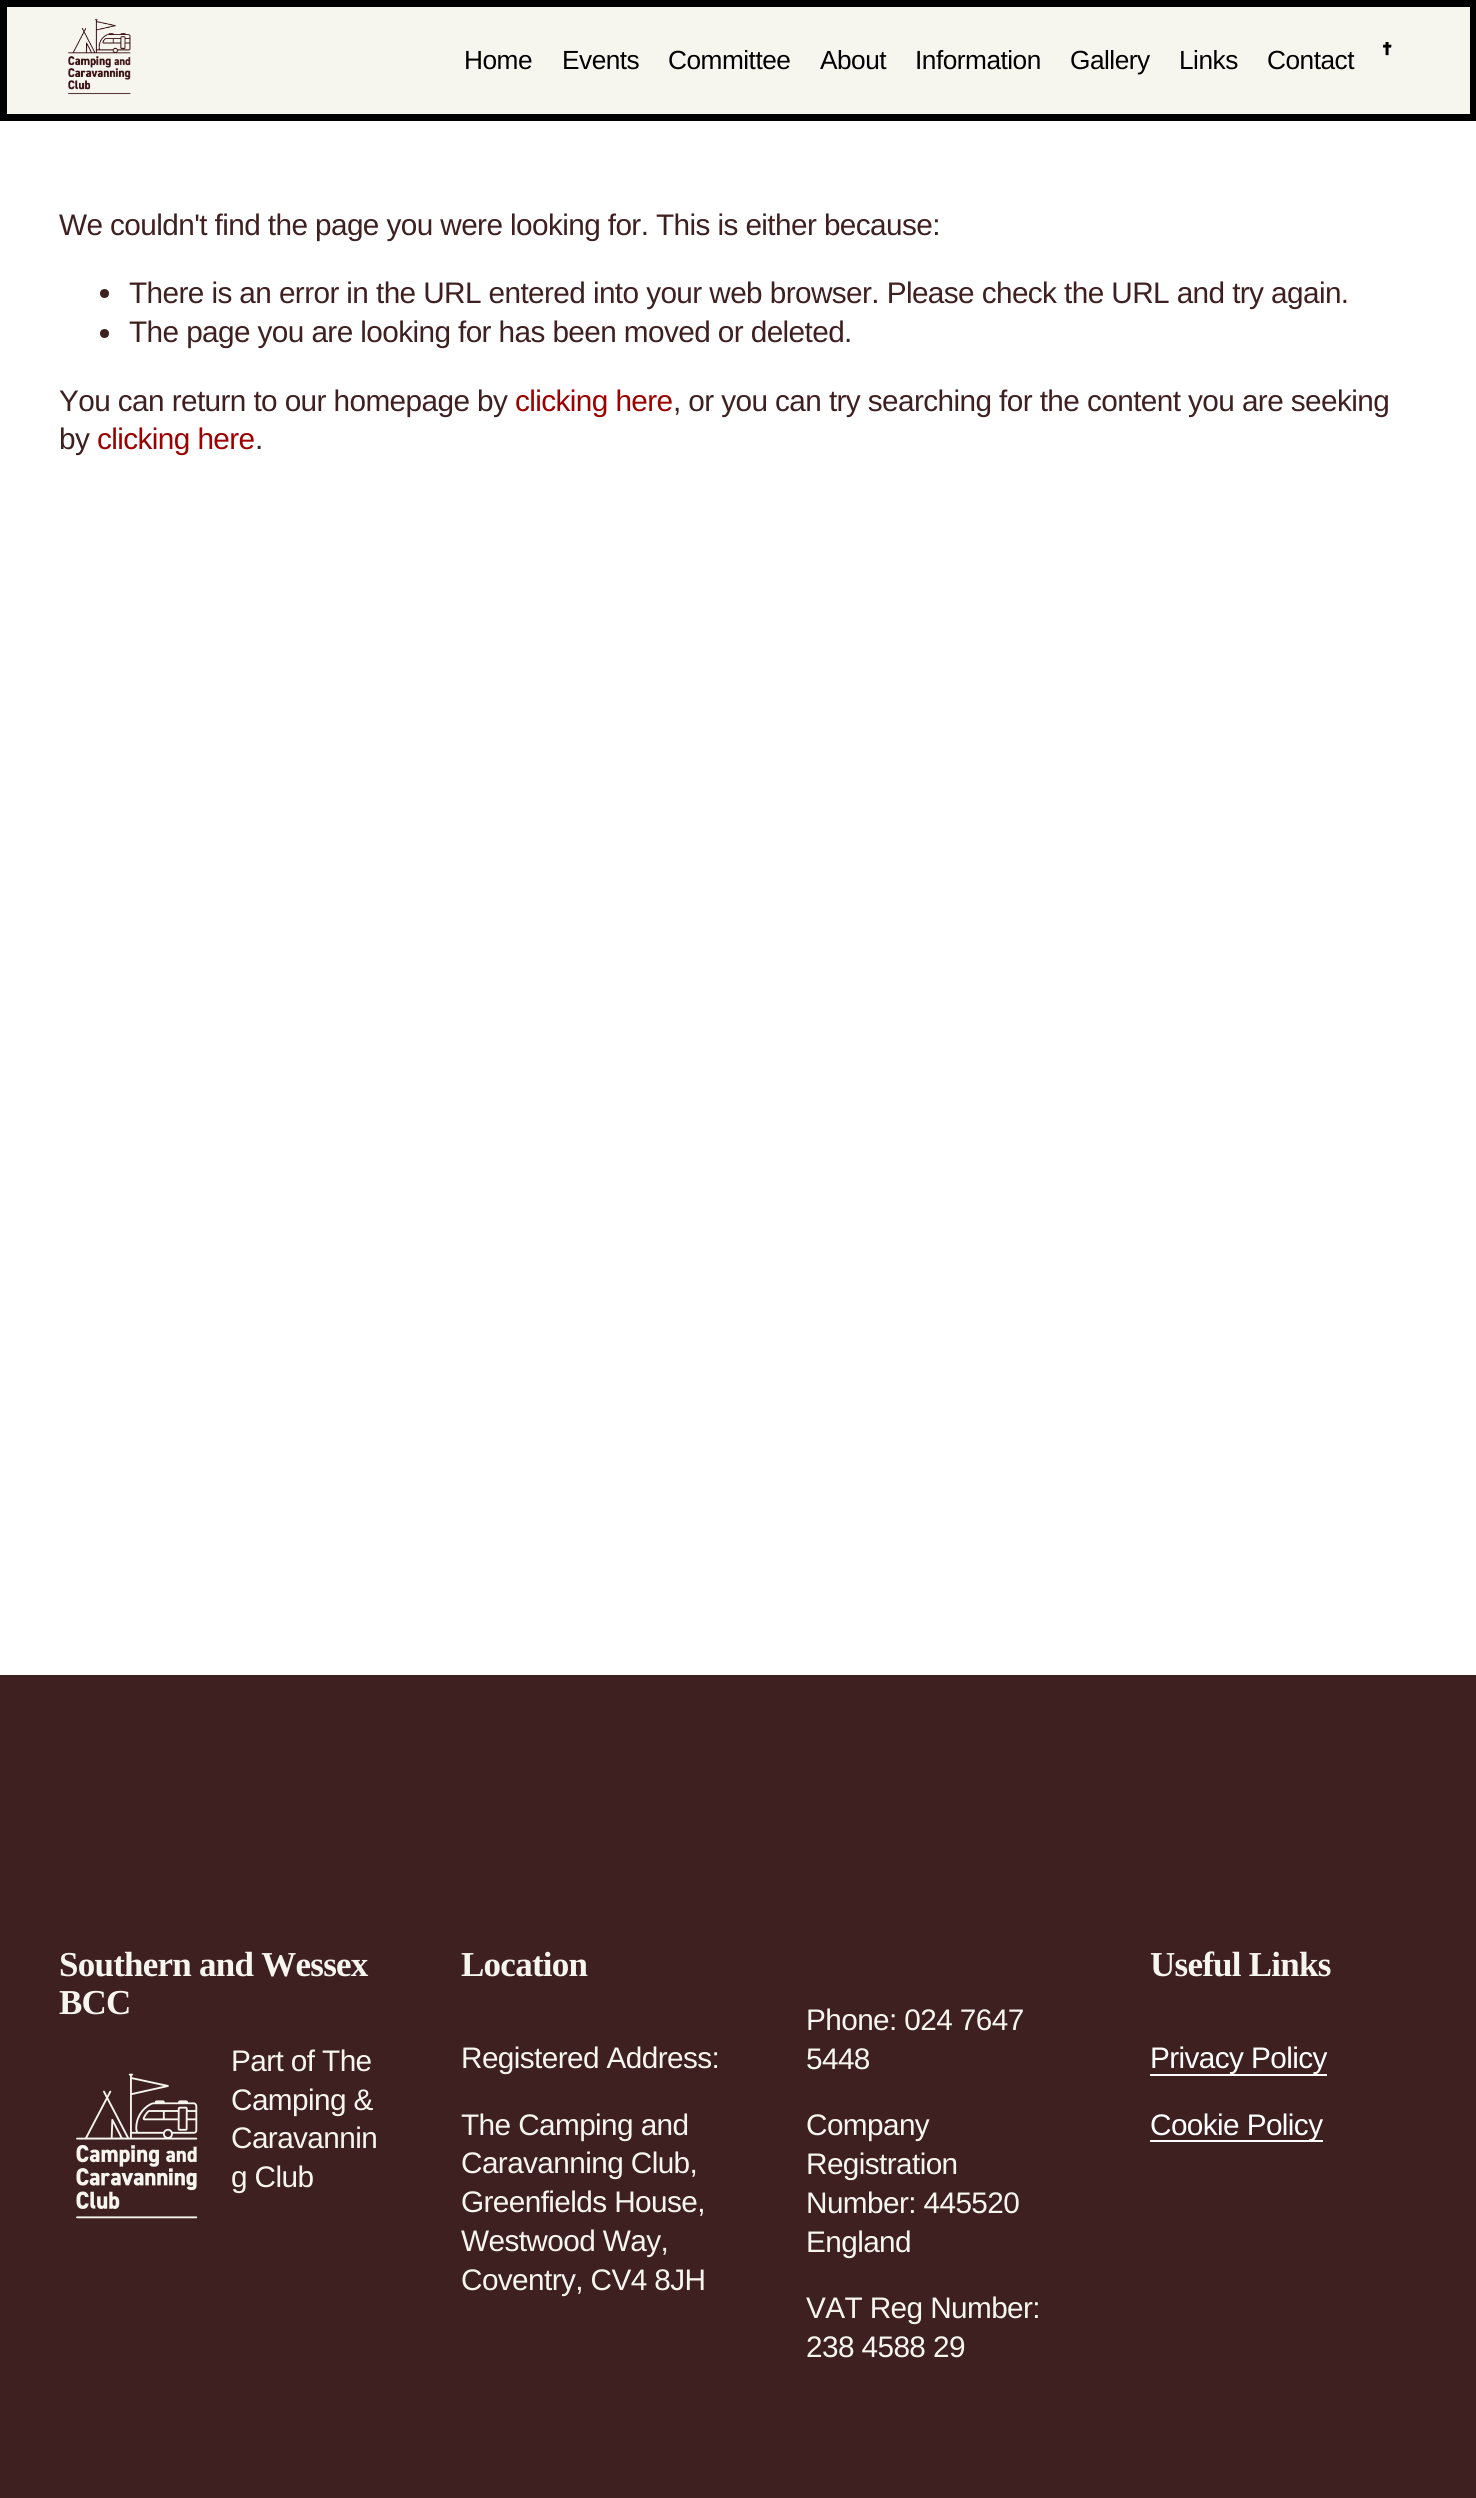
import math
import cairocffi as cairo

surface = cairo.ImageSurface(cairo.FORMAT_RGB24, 1476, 2498)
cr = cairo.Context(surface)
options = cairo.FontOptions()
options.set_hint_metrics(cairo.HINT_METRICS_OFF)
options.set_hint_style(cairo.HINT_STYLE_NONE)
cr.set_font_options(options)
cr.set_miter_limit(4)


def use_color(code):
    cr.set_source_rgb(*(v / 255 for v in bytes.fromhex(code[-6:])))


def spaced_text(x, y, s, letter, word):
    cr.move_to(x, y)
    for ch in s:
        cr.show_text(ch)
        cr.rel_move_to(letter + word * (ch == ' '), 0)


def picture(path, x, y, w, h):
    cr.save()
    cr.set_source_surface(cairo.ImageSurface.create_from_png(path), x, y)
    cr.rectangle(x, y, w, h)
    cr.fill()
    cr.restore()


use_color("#ffffff")
cr.paint()
use_color("#f6f6ef")
cr.rectangle(3.5, 3.5, 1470, 114)
cr.fill_preserve()
use_color("#000000")
cr.set_line_width(7)
cr.stroke()
picture("img1.png", 68, 19, 63, 76)
cr.select_font_face("Liberation Sans")
cr.set_font_size(26.25)
spaced_text(464, 69, "Home", -0.5, 0)
spaced_text(562, 69, "Events", -0.5, 0)
spaced_text(668, 69, "Committee", -0.5, 0)
spaced_text(820, 69, "About", -0.5, 0)
spaced_text(915, 69, "Information", -0.5, 0)
spaced_text(1070, 69, "Gallery", -0.5, 0)
spaced_text(1179, 69, "Links", -0.5, 0)
spaced_text(1267, 69, "Contact", -0.5, 0)
picture("img2.png", 1383, 42, 9, 14)
cr.set_font_size(29.75)
use_color("#3f2021")
spaced_text(59, 235, "We couldn't find the page you were looking for. This is either because:", -0.6, 0)
cr.new_path()
cr.arc(104.5, 293.5, 4.5, 0, 2 * math.pi)
cr.fill()
spaced_text(129, 303, "There is an error in the URL entered into your web browser. Please check the URL and try again.", -0.6, 0)
cr.new_path()
cr.arc(104.5, 333.5, 4.5, 0, 2 * math.pi)
cr.fill()
spaced_text(129, 342, "The page you are looking for has been moved or deleted.", -0.6, 0)
spaced_text(59, 411, "You can return to our homepage by", -0.6, 0)
use_color("#9b0101")
spaced_text(515, 411, "clicking here", -0.6, 0)
use_color("#3f2021")
spaced_text(673, 411, ", or you can try searching for the", -0.6, 0)
spaced_text(1087, 411, "content you are seeking", -0.6, 0)
spaced_text(59, 449, "by", -0.6, 0)
use_color("#9b0101")
spaced_text(97, 449, "clicking here", -0.6, 0)
use_color("#3f2021")
spaced_text(255, 449, ".", -0.6, 0)
cr.rectangle(0, 1675, 1476, 823)
cr.fill()
cr.select_font_face("Liberation Serif", cairo.FONT_SLANT_NORMAL, cairo.FONT_WEIGHT_BOLD)
cr.set_font_size(35)
use_color("#f6f6ef")
spaced_text(59, 1976, "Southern and Wessex", -0.75, 0)
spaced_text(59, 2014, "BCC", -0.75, 0)
spaced_text(461, 1976, "Location", -0.75, 0)
cr.select_font_face("Liberation Sans")
cr.set_font_size(29.75)
spaced_text(461, 2068, "Registered Address:", -0.6, 0)
spaced_text(461, 2135, "The Camping and", -0.6, 0)
spaced_text(461, 2173, "Caravanning Club,", -0.6, 0)
spaced_text(461, 2212, "Greenfields House,", -0.6, 0)
spaced_text(461, 2251, "Westwood Way,", -0.6, 0)
spaced_text(461, 2290, "Coventry, CV4 8JH", -0.6, 0)
spaced_text(806, 2030, "Phone: 024 7647", -0.6, 0)
spaced_text(806, 2069, "5448", -0.6, 0)
spaced_text(806, 2135, "Company", -0.6, 0)
spaced_text(806, 2174, "Registration", -0.6, 0)
spaced_text(806, 2213, "Number: 445520", -0.6, 0)
spaced_text(806, 2252, "England", -0.6, 0)
spaced_text(806, 2318, "VAT Reg Number:", -0.6, 0)
spaced_text(806, 2357, "238 4588 29", -0.6, 0)
cr.select_font_face("Liberation Serif", cairo.FONT_SLANT_NORMAL, cairo.FONT_WEIGHT_BOLD)
cr.set_font_size(35)
spaced_text(1150, 1976, "Useful Links", -0.75, 0)
use_color("#ffffff")
cr.rectangle(1150, 2074, 177, 2)
cr.fill()
cr.select_font_face("Liberation Sans")
cr.set_font_size(29.75)
spaced_text(1150, 2068, "Privacy Policy", -0.6, 0)
cr.rectangle(1150, 2140, 173, 2)
cr.fill()
spaced_text(1150, 2135, "Cookie Policy", -0.6, 0)
picture("img3.png", 76, 2073, 122, 146)
use_color("#f6f6ef")
spaced_text(231, 2071, "Part of The", -0.6, 0)
spaced_text(231, 2110, "Camping &", -0.6, 0)
spaced_text(231, 2148, "Caravannin", -0.6, 0)
spaced_text(231, 2187, "g Club", -0.6, 0)
surface.write_to_png("result.png")
